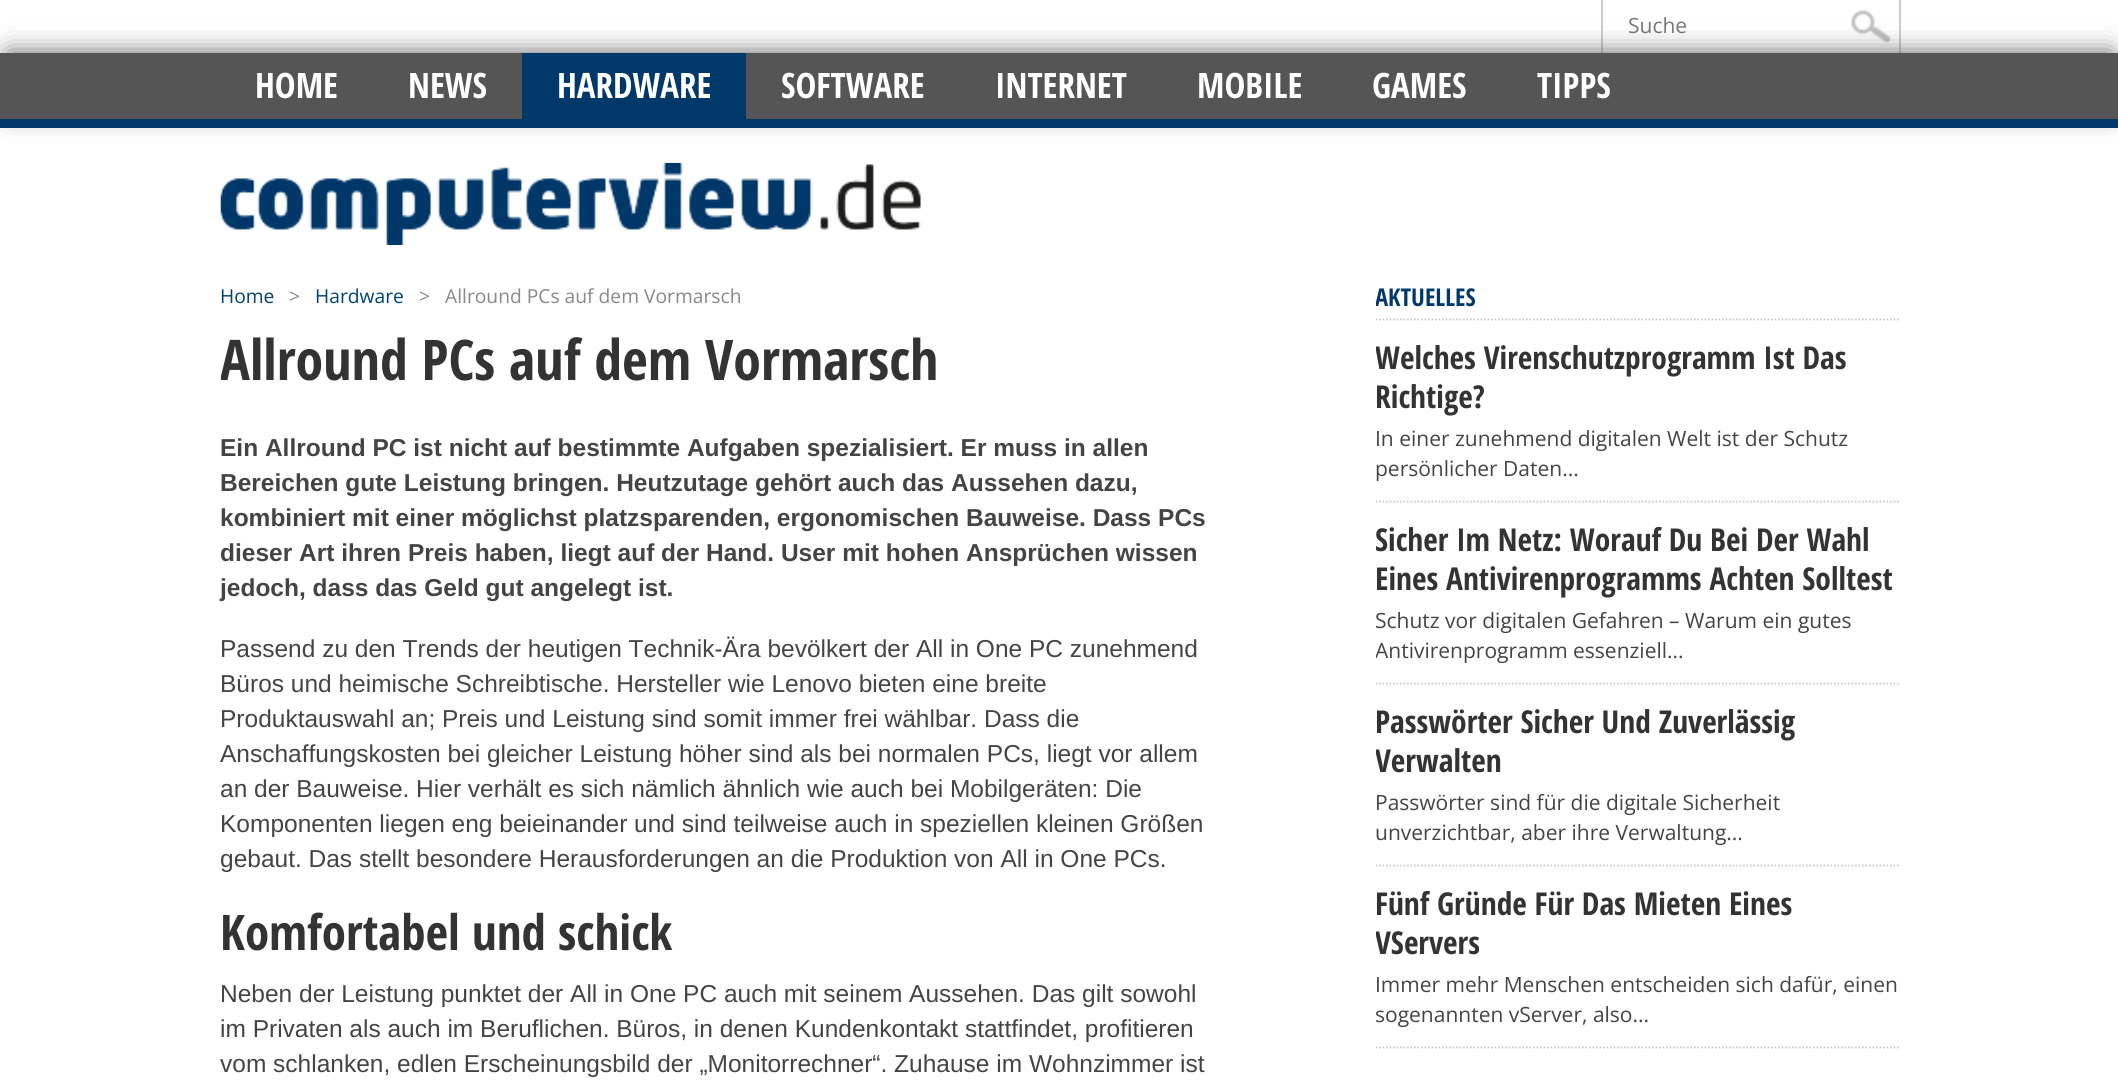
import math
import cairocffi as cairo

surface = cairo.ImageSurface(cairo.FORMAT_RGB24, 2118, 1088)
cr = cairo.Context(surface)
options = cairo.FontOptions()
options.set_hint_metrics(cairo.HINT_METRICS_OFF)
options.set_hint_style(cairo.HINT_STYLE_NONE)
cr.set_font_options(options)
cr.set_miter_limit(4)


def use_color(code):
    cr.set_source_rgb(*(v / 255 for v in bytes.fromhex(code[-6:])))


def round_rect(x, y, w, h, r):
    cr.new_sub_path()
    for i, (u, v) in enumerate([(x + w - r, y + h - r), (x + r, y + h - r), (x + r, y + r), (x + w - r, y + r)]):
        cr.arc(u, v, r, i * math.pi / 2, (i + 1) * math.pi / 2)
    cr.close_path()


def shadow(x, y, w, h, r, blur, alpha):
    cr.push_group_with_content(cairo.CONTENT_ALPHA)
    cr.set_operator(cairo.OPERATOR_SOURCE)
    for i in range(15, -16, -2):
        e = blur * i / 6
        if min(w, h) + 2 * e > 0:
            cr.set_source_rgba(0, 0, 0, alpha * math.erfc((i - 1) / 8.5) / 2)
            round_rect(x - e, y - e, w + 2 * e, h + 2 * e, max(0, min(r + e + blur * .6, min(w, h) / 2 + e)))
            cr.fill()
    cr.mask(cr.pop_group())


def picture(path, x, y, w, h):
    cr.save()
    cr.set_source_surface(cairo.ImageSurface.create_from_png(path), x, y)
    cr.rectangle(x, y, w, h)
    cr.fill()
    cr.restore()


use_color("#ffffff")
cr.paint()
use_color("#cccccc")
cr.rectangle(1899, 0, 2, 53)
cr.fill()
cr.rectangle(1601, 0, 2, 53)
cr.fill()
picture("img1.png", 1851, 10, 40, 33)
cr.select_font_face("Open Sans")
cr.set_font_size(21)
use_color("#777777")
cr.move_to(1628, 33)
cr.show_text("Suche")
use_color("#555555")
shadow(9, 54, 2102, 58, 0, 13, 1)
use_color("#555555")
cr.rectangle(0, 53, 2118, 66)
cr.fill()
use_color("#003869")
cr.rectangle(0, 119, 2118, 9)
cr.fill()
cr.select_font_face("Open Sans Condensed", cairo.FONT_SLANT_NORMAL, cairo.FONT_WEIGHT_BOLD)
cr.set_font_size(35)
use_color("#ffffff")
cr.move_to(255, 98)
cr.show_text("HOME")
cr.move_to(408, 98)
cr.show_text("NEWS")
use_color("#003869")
cr.rectangle(522, 53, 224, 66)
cr.fill()
use_color("#ffffff")
cr.move_to(557, 98)
cr.show_text("HARDWARE")
cr.move_to(781, 98)
cr.show_text("SOFTWARE")
cr.move_to(995, 98)
cr.show_text("INTERNET")
cr.move_to(1197, 98)
cr.show_text("MOBILE")
cr.move_to(1372, 98)
cr.show_text("GAMES")
cr.move_to(1537, 98)
cr.show_text("TIPPS")
picture("img2.png", 220, 162, 701, 83)
cr.select_font_face("Open Sans")
cr.set_font_size(19.25)
use_color("#004276")
cr.move_to(220, 303)
cr.show_text("Home")
use_color("#888888")
cr.move_to(289, 303)
cr.show_text(">")
use_color("#004276")
cr.move_to(315, 303)
cr.show_text("Hardware")
use_color("#888888")
cr.move_to(419, 303)
cr.show_text(">")
cr.move_to(445, 303)
cr.show_text("Allround PCs auf dem Vormarsch")
cr.save()
cr.rectangle(221, 322, 1085, 74)
cr.clip()
cr.select_font_face("Open Sans Condensed", cairo.FONT_SLANT_NORMAL, cairo.FONT_WEIGHT_BOLD)
cr.set_font_size(56)
use_color("#333333")
cr.move_to(220, 380)
cr.show_text("Allround PCs auf dem Vormarsch")
cr.restore()
cr.select_font_face("Liberation Sans", cairo.FONT_SLANT_NORMAL, cairo.FONT_WEIGHT_BOLD)
cr.set_font_size(24.5)
use_color("#444444")
cr.move_to(220, 456)
cr.show_text("Ein Allround PC ist nicht auf bestimmte Aufgaben spezialisiert. Er muss in allen")
cr.move_to(220, 491)
cr.show_text("Bereichen gute Leistung bringen. Heutzutage gehört auch das Aussehen dazu,")
cr.move_to(220, 526)
cr.show_text("kombiniert mit einer möglichst platzsparenden, ergonomischen Bauweise. Dass PCs")
cr.move_to(220, 561)
cr.show_text("dieser Art ihren Preis haben, liegt auf der Hand. User mit hohen Ansprüchen wissen")
cr.move_to(220, 596)
cr.show_text("jedoch, dass das Geld gut angelegt ist.")
cr.select_font_face("Liberation Sans")
cr.move_to(220, 657)
cr.show_text("Passend zu den Trends der heutigen Technik-Ära bevölkert der All in One PC zunehmend")
cr.move_to(220, 692)
cr.show_text("Büros und heimische Schreibtische. Hersteller wie Lenovo bieten eine breite")
cr.move_to(220, 727)
cr.show_text("Produktauswahl an; Preis und Leistung sind somit immer frei wählbar. Dass die")
cr.move_to(220, 762)
cr.show_text("Anschaffungskosten bei gleicher Leistung höher sind als bei normalen PCs, liegt vor allem")
cr.move_to(220, 797)
cr.show_text("an der Bauweise. Hier verhält es sich nämlich ähnlich wie auch bei Mobilgeräten: Die")
cr.move_to(220, 832)
cr.show_text("Komponenten liegen eng beieinander und sind teilweise auch in speziellen kleinen Größen")
cr.move_to(220, 867)
cr.show_text("gebaut. Das stellt besondere Herausforderungen an die Produktion von All in One PCs.")
cr.select_font_face("Open Sans Condensed", cairo.FONT_SLANT_NORMAL, cairo.FONT_WEIGHT_BOLD)
cr.set_font_size(49)
use_color("#333333")
cr.move_to(220, 950)
cr.show_text("Komfortabel und schick")
cr.select_font_face("Liberation Sans")
cr.set_font_size(24.5)
use_color("#444444")
cr.move_to(220, 1002)
cr.show_text("Neben der Leistung punktet der All in One PC auch mit seinem Aussehen. Das gilt sowohl")
cr.move_to(220, 1037)
cr.show_text("im Privaten als auch im Beruflichen. Büros, in denen Kundenkontakt stattfindet, profitieren")
cr.move_to(220, 1072)
cr.show_text("vom schlanken, edlen Erscheinungsbild der „Monitorrechner“. Zuhause im Wohnzimmer ist")
cr.save()
cr.rectangle(1376, 285, 525, 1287)
cr.clip()
cr.new_path()
cr.move_to(1375.5, 319.5)
cr.line_to(1900.5, 319.5)
use_color("#cccccc")
cr.set_line_width(1.8)
cr.set_dash([1.75, 1.75])
cr.stroke()
cr.select_font_face("Open Sans Condensed", cairo.FONT_SLANT_NORMAL, cairo.FONT_WEIGHT_BOLD)
use_color("#003869")
cr.move_to(1375, 306)
cr.show_text("AKTUELLES")
cr.new_path()
cr.move_to(1375.5, 501.5)
cr.line_to(1900.5, 501.5)
use_color("#cccccc")
cr.stroke()
cr.set_font_size(31.5)
use_color("#333333")
cr.move_to(1375, 369)
cr.show_text("Welches Virenschutzprogramm Ist Das")
cr.restore()
cr.select_font_face("Open Sans Condensed", cairo.FONT_SLANT_NORMAL, cairo.FONT_WEIGHT_BOLD)
cr.set_font_size(31.5)
use_color("#333333")
cr.move_to(1375, 408)
cr.show_text("Richtige?")
cr.select_font_face("Open Sans")
cr.set_font_size(21)
use_color("#444444")
cr.move_to(1375, 446)
cr.show_text("In einer zunehmend digitalen Welt ist der Schutz")
cr.move_to(1375, 476)
cr.show_text("persönlicher Daten...")
cr.save()
cr.rectangle(1376, 285, 525, 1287)
cr.clip()
cr.new_path()
cr.move_to(1375.5, 683.5)
cr.line_to(1900.5, 683.5)
use_color("#cccccc")
cr.set_line_width(1.8)
cr.set_dash([1.75, 1.75])
cr.stroke()
cr.select_font_face("Open Sans Condensed", cairo.FONT_SLANT_NORMAL, cairo.FONT_WEIGHT_BOLD)
cr.set_font_size(31.5)
use_color("#333333")
cr.move_to(1375, 551)
cr.show_text("Sicher Im Netz: Worauf Du Bei Der Wahl")
cr.restore()
cr.select_font_face("Open Sans Condensed", cairo.FONT_SLANT_NORMAL, cairo.FONT_WEIGHT_BOLD)
cr.set_font_size(31.5)
use_color("#333333")
cr.move_to(1375, 590)
cr.show_text("Eines Antivirenprogramms Achten Solltest")
cr.save()
cr.rectangle(1376, 285, 525, 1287)
cr.clip()
cr.select_font_face("Open Sans")
cr.set_font_size(21)
use_color("#444444")
cr.move_to(1375, 628)
cr.show_text("Schutz vor digitalen Gefahren – Warum ein gutes")
cr.move_to(1375, 658)
cr.show_text("Antivirenprogramm essenziell...")
cr.new_path()
cr.move_to(1375.5, 865.5)
cr.line_to(1900.5, 865.5)
use_color("#cccccc")
cr.set_line_width(1.8)
cr.set_dash([1.75, 1.75])
cr.stroke()
cr.restore()
cr.move_to(1375, 733)
cr.show_text("Passwörter Sicher Und Zuverlässig")
cr.save()
cr.rectangle(1376, 285, 525, 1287)
cr.clip()
cr.move_to(1375, 772)
cr.show_text("Verwalten")
cr.restore()
cr.select_font_face("Open Sans")
cr.set_font_size(21)
use_color("#444444")
cr.move_to(1375, 810)
cr.show_text("Passwörter sind für die digitale Sicherheit")
cr.move_to(1375, 840)
cr.show_text("unverzichtbar, aber ihre Verwaltung...")
cr.save()
cr.rectangle(1376, 285, 525, 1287)
cr.clip()
cr.new_path()
cr.move_to(1375.5, 1047.5)
cr.line_to(1900.5, 1047.5)
use_color("#cccccc")
cr.set_line_width(1.8)
cr.set_dash([1.75, 1.75])
cr.stroke()
cr.restore()
cr.select_font_face("Open Sans Condensed", cairo.FONT_SLANT_NORMAL, cairo.FONT_WEIGHT_BOLD)
cr.set_font_size(31.5)
use_color("#333333")
cr.move_to(1375, 915)
cr.show_text("Fünf Gründe Für Das Mieten Eines")
cr.save()
cr.rectangle(1376, 285, 525, 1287)
cr.clip()
cr.move_to(1375, 954)
cr.show_text("VServers")
cr.restore()
cr.select_font_face("Open Sans")
cr.set_font_size(21)
use_color("#444444")
cr.move_to(1375, 992)
cr.show_text("Immer mehr Menschen entscheiden sich dafür, einen")
cr.save()
cr.rectangle(1376, 285, 525, 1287)
cr.clip()
cr.move_to(1375, 1022)
cr.show_text("sogenannten vServer, also...")
cr.restore()
surface.write_to_png("result.png")
